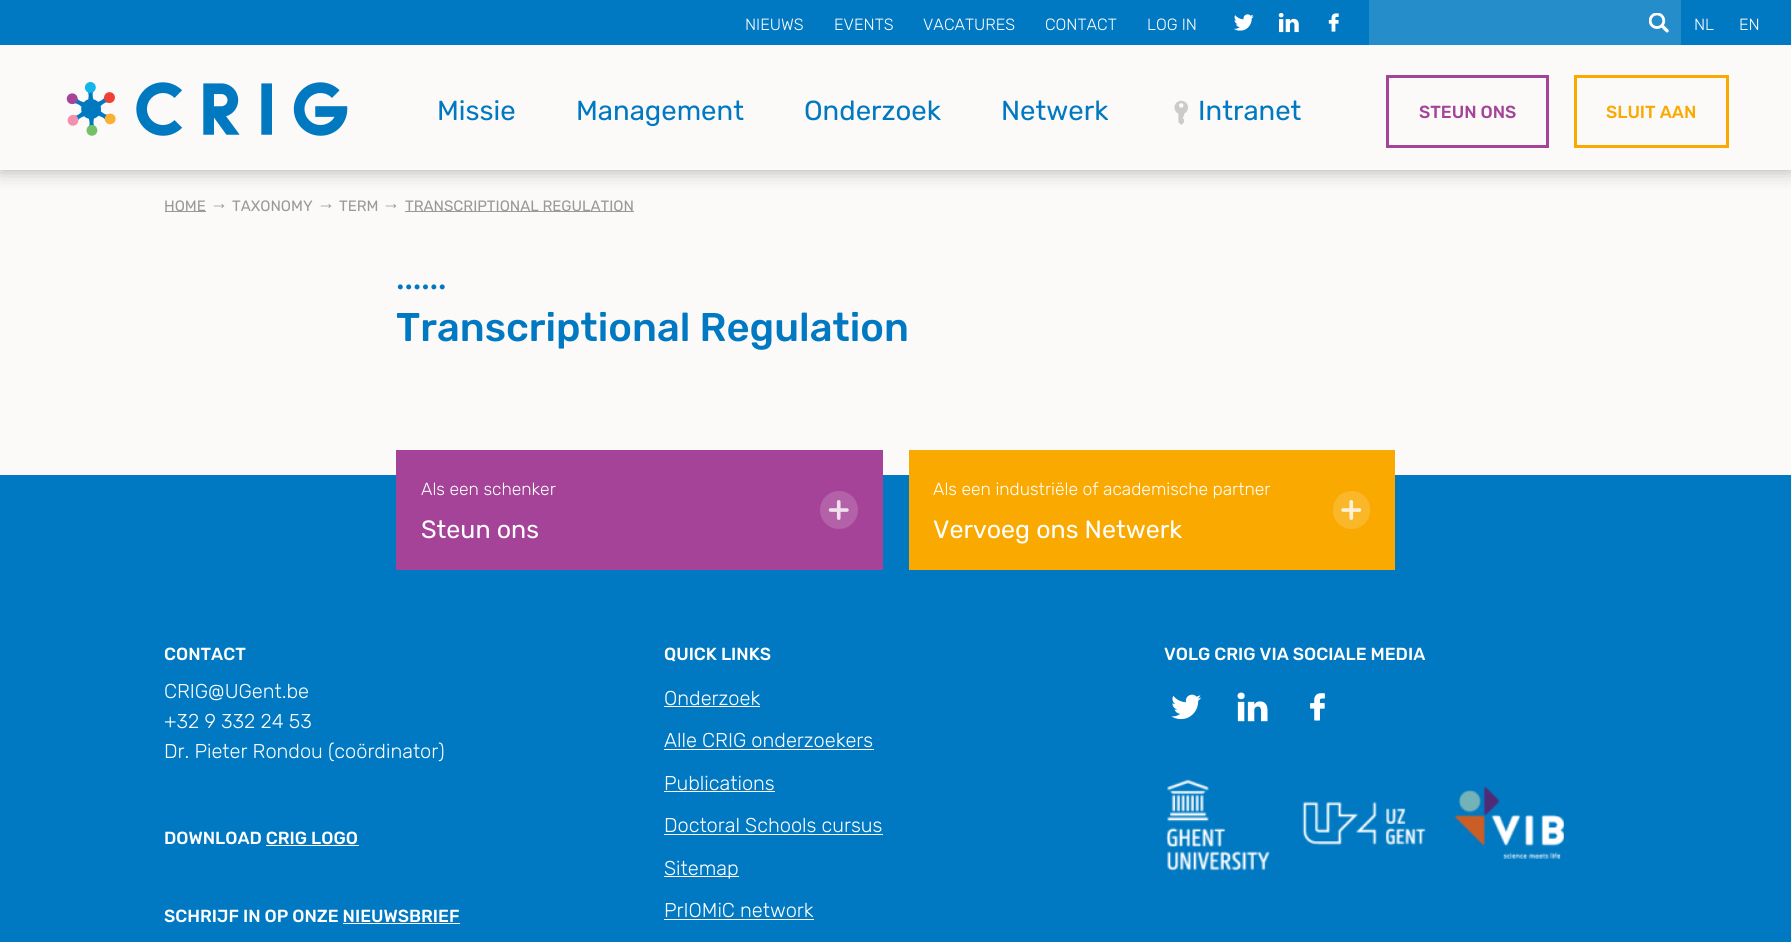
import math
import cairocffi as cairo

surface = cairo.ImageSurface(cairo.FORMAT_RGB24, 1791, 942)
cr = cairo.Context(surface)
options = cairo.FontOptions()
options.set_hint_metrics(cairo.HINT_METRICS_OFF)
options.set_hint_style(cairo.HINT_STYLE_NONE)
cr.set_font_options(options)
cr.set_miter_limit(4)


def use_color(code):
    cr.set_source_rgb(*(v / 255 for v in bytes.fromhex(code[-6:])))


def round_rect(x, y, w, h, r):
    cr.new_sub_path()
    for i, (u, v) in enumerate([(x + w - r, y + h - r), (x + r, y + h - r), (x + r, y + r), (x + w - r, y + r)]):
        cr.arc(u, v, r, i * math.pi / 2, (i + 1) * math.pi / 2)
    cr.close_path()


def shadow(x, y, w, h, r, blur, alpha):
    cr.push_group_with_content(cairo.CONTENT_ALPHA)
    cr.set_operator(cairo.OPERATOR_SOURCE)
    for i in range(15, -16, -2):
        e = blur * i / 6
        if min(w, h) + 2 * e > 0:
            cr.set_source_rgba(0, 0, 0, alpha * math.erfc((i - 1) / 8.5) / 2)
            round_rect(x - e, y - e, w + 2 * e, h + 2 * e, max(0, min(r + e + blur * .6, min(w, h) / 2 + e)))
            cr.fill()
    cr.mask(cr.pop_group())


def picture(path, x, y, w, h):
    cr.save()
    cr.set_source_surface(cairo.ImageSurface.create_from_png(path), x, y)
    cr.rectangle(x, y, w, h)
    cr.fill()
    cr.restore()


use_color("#fbfaf8")
cr.paint()
cr.save()
cr.rectangle(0, 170, 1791, 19)
cr.clip()
use_color("#aaaaaa")
shadow(0, 0, 1791, 170, 0, 9.5, 1)
cr.restore()
use_color("#0079c2")
cr.rectangle(0, 0, 1791, 45)
cr.fill()
cr.select_font_face("Rubik Light")
cr.set_font_size(16.25)
use_color("#ffffff")
cr.move_to(745, 30)
cr.show_text("NIEUWS")
cr.move_to(834, 30)
cr.show_text("EVENTS")
cr.move_to(923, 30)
cr.show_text("VACATURES")
cr.move_to(1045, 30)
cr.show_text("CONTACT")
cr.move_to(1147, 30)
cr.show_text("LOG IN")
picture("img1.png", 1234, 14, 20, 17)
picture("img2.png", 1278, 13, 21, 20)
picture("img3.png", 1328, 13, 11, 19)
use_color("#268dcb")
cr.rectangle(1369, 0, 267, 45)
cr.fill()
round_rect(1636, 0, 45, 45, 1)
cr.fill()
picture("img4.png", 1649, 13, 20, 20)
use_color("#ffffff")
cr.move_to(1694, 30)
cr.show_text("NL")
cr.move_to(1739, 30)
cr.show_text("EN")
picture("img5.png", 66, 82, 282, 54)
cr.select_font_face("Rubik")
cr.set_font_size(27.5)
use_color("#0079c2")
cr.move_to(437, 120)
cr.show_text("Missie")
cr.move_to(576, 120)
cr.show_text("Management")
cr.move_to(804, 120)
cr.show_text("Onderzoek")
cr.move_to(1001, 120)
cr.show_text("Netwerk")
picture("img6.png", 1174, 100, 14, 25)
cr.move_to(1198, 120)
cr.show_text("Intranet")
cr.rectangle(1387.5, 76.5, 160, 70)
use_color("#a54399")
cr.set_line_width(3)
cr.stroke()
cr.select_font_face("Rubik Medium")
cr.set_font_size(17.5)
cr.move_to(1419, 118)
cr.show_text("STEUN ONS")
cr.rectangle(1575.5, 76.5, 152, 70)
use_color("#faa901")
cr.stroke()
cr.move_to(1606, 118)
cr.show_text("SLUIT AAN")
use_color("#999999")
cr.rectangle(165, 211, 41, 1)
cr.fill()
cr.select_font_face("Rubik")
cr.set_font_size(15)
cr.move_to(164, 211)
cr.show_text("HOME")
cr.select_font_face("Liberation Sans")
cr.set_font_size(18)
cr.move_to(210, 209)
cr.show_text("→")
cr.select_font_face("Rubik")
cr.set_font_size(15)
cr.move_to(232, 211)
cr.show_text("TAXONOMY")
cr.select_font_face("Liberation Sans")
cr.set_font_size(18)
cr.move_to(317, 209)
cr.show_text("→")
cr.select_font_face("Rubik")
cr.set_font_size(15)
cr.move_to(339, 211)
cr.show_text("TERM")
cr.select_font_face("Liberation Sans")
cr.set_font_size(18)
cr.move_to(382, 209)
cr.show_text("→")
cr.rectangle(405, 211, 229, 1)
cr.fill()
cr.select_font_face("Rubik")
cr.set_font_size(15)
cr.move_to(405, 211)
cr.show_text("TRANSCRIPTIONAL REGULATION")
picture("img7.png", 397, 284, 48, 6)
cr.select_font_face("Rubik Medium")
cr.set_font_size(40)
use_color("#0079c2")
cr.move_to(396, 341)
cr.show_text("Transcriptional Regulation")
cr.rectangle(0, 475, 1791, 467)
cr.fill()
use_color("#a54399")
cr.rectangle(396, 450, 487, 120)
cr.fill()
cr.select_font_face("Rubik Light")
cr.set_font_size(17.5)
use_color("#ffffff")
cr.move_to(421, 495)
cr.show_text("Als een schenker")
cr.select_font_face("Rubik")
cr.set_font_size(25)
cr.move_to(421, 538)
cr.show_text("Steun ons")
use_color("#b361a9")
cr.new_path()
cr.arc(839, 510, 19, 0, 2 * math.pi)
cr.fill()
picture("img8.png", 828, 500, 21, 20)
use_color("#faa901")
cr.rectangle(909, 450, 486, 120)
cr.fill()
cr.select_font_face("Rubik Light")
cr.set_font_size(17.5)
use_color("#ffffff")
cr.move_to(933, 495)
cr.show_text("Als een industriële of academische partner")
cr.select_font_face("Rubik")
cr.set_font_size(25)
cr.move_to(933, 538)
cr.show_text("Vervoeg ons Netwerk")
use_color("#fbb72a")
round_rect(1333, 491, 37, 38, 18.5)
cr.fill()
picture("img9.png", 1341, 500, 21, 20)
cr.select_font_face("Rubik Medium")
cr.set_font_size(17.5)
use_color("#ffffff")
cr.move_to(164, 660)
cr.show_text("CONTACT")
cr.select_font_face("Rubik Light")
cr.set_font_size(20)
cr.move_to(164, 698)
cr.show_text("CRIG@UGent.be")
cr.move_to(164, 728)
cr.show_text("+32 9 332 24 53")
cr.move_to(164, 758)
cr.show_text("Dr. Pieter Rondou (coördinator)")
cr.select_font_face("Rubik Medium")
cr.set_font_size(17.5)
cr.move_to(164, 844)
cr.show_text("DOWNLOAD CRIG LOGO")
cr.rectangle(266, 845, 93, 1)
cr.fill()
cr.move_to(164, 922)
cr.show_text("SCHRIJF IN OP ONZE NIEUWSBRIEF")
cr.rectangle(343, 923, 117, 1)
cr.fill()
cr.move_to(664, 660)
cr.show_text("QUICK LINKS")
cr.select_font_face("Rubik Light")
cr.set_font_size(20)
cr.move_to(664, 705)
cr.show_text("Onderzoek")
cr.rectangle(664, 706, 96, 1)
cr.fill()
cr.move_to(664, 747)
cr.show_text("Alle CRIG onderzoekers")
cr.rectangle(664, 749, 210, 1)
cr.fill()
cr.move_to(664, 790)
cr.show_text("Publications")
cr.rectangle(664, 791, 111, 1)
cr.fill()
cr.move_to(664, 832)
cr.show_text("Doctoral Schools cursus")
cr.rectangle(664, 834, 219, 1)
cr.fill()
cr.rectangle(664, 876, 75, 1)
cr.fill()
cr.move_to(664, 875)
cr.show_text("Sitemap")
cr.move_to(664, 917)
cr.show_text("PrIOMiC network")
cr.rectangle(664, 919, 150, 1)
cr.fill()
cr.select_font_face("Rubik Medium")
cr.set_font_size(17.5)
cr.move_to(1164, 660)
cr.show_text("VOLG CRIG VIA SOCIALE MEDIA")
picture("img10.png", 1171, 694, 31, 26)
picture("img11.png", 1237, 692, 31, 30)
picture("img12.png", 1310, 693, 15, 28)
picture("img13.png", 1166, 779, 398, 92)
surface.write_to_png("result.png")
